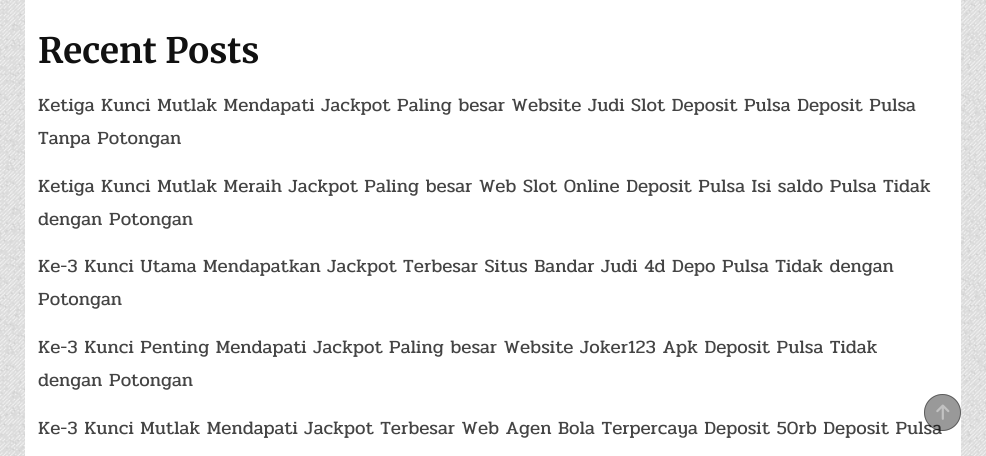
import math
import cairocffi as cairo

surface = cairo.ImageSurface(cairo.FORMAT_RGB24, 986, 456)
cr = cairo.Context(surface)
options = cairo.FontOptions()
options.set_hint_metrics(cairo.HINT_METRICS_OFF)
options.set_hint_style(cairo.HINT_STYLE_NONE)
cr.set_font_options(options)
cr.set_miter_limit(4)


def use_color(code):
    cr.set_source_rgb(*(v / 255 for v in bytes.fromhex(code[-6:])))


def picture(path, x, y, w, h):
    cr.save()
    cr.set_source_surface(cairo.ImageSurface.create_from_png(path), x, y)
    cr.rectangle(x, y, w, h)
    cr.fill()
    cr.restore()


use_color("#ffffff")
cr.paint()
picture("img1.png", 0, 0, 986, 456)
use_color("#ffffff")
cr.rectangle(25, 0, 936, 456)
cr.fill()
cr.select_font_face("Merriweather", cairo.FONT_SLANT_NORMAL, cairo.FONT_WEIGHT_BOLD)
cr.set_font_size(35)
use_color("#111111")
cr.move_to(38, 63)
cr.show_text("Recent Posts")
cr.select_font_face("Pridi")
cr.set_font_size(18.75)
use_color("#444444")
cr.move_to(38, 111)
cr.show_text("Ketiga Kunci Mutlak Mendapati Jackpot Paling besar Website Judi Slot Deposit Pulsa Deposit Pulsa")
cr.move_to(38, 144)
cr.show_text("Tanpa Potongan")
cr.move_to(38, 192)
cr.show_text("Ketiga Kunci Mutlak Meraih Jackpot Paling besar Web Slot Online Deposit Pulsa Isi saldo Pulsa Tidak")
cr.move_to(38, 225)
cr.show_text("dengan Potongan")
cr.move_to(38, 272)
cr.show_text("Ke-3 Kunci Utama Mendapatkan Jackpot Terbesar Situs Bandar Judi 4d Depo Pulsa Tidak dengan")
cr.move_to(38, 305)
cr.show_text("Potongan")
cr.move_to(38, 353)
cr.show_text("Ke-3 Kunci Penting Mendapati Jackpot Paling besar Website Joker123 Apk Deposit Pulsa Tidak")
cr.move_to(38, 386)
cr.show_text("dengan Potongan")
cr.move_to(38, 434)
cr.show_text("Ke-3 Kunci Mutlak Mendapati Jackpot Terbesar Web Agen Bola Terpercaya Deposit 50rb Deposit Pulsa")
cr.set_source_rgba(0, 0, 0, 0.4)
cr.new_path()
cr.arc(942.5, 412.5, 18.5, 0, 2 * math.pi)
cr.fill()
cr.arc(942.5, 412.5, 18, 0, 2 * math.pi)
cr.set_line_width(1)
cr.stroke()
picture("img2.png", 936, 404, 14, 16)
surface.write_to_png("result.png")
